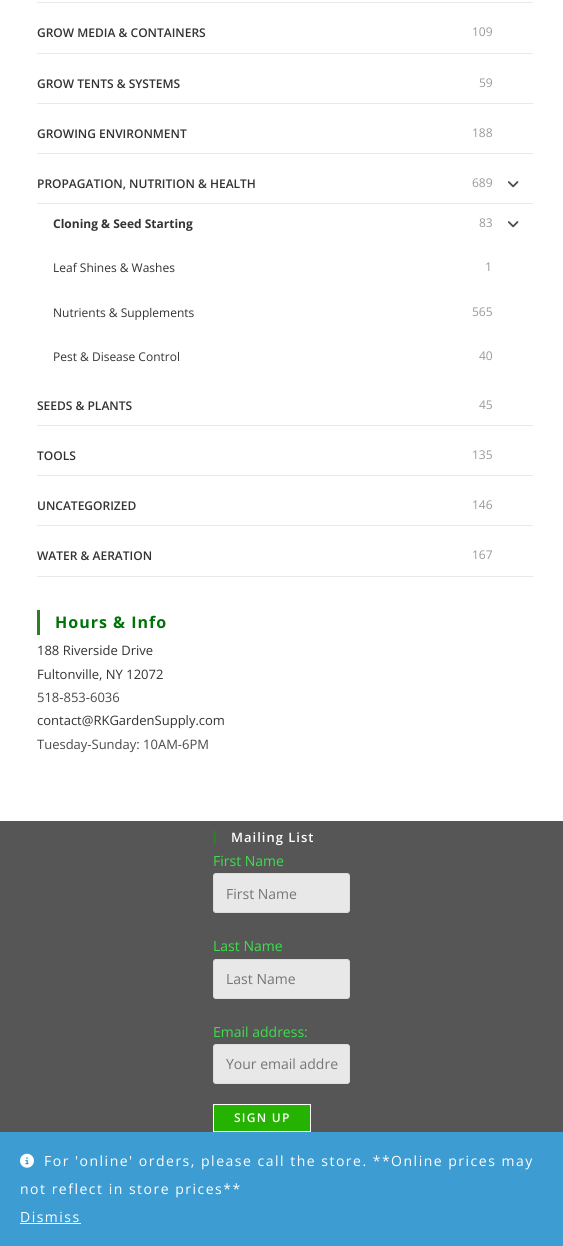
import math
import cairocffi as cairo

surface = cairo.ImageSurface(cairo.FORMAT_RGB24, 563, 1246)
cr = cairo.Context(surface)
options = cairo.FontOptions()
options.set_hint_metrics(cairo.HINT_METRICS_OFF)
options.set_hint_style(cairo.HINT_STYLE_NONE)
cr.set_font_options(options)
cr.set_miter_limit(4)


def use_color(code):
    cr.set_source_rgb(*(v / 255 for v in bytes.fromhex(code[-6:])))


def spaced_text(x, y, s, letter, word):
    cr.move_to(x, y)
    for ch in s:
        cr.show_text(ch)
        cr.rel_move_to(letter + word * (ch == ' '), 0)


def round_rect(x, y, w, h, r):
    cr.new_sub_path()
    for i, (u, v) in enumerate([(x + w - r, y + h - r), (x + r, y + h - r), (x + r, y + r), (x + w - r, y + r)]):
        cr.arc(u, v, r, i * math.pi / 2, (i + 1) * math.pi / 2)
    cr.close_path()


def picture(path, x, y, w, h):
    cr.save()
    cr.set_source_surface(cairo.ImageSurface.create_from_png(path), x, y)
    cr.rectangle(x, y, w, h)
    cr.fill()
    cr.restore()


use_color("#ffffff")
cr.paint()
use_color("#eaeaea")
cr.rectangle(37, 2, 496, 1)
cr.fill()
cr.rectangle(37, 53, 496, 1)
cr.fill()
cr.select_font_face("Open Sans SemiBold")
cr.set_font_size(12)
use_color("#333333")
cr.move_to(37, 37)
cr.show_text("GROW MEDIA & CONTAINERS")
cr.select_font_face("Open Sans")
use_color("#999999")
cr.move_to(472, 36)
cr.show_text("109")
use_color("#eaeaea")
cr.rectangle(37, 103, 496, 1)
cr.fill()
cr.select_font_face("Open Sans SemiBold")
use_color("#333333")
cr.move_to(37, 88)
cr.show_text("GROW TENTS & SYSTEMS")
cr.select_font_face("Open Sans")
use_color("#999999")
cr.move_to(479, 87)
cr.show_text("59")
use_color("#eaeaea")
cr.rectangle(37, 153, 496, 1)
cr.fill()
cr.select_font_face("Open Sans SemiBold")
use_color("#333333")
cr.move_to(37, 138)
cr.show_text("GROWING ENVIRONMENT")
cr.select_font_face("Open Sans")
use_color("#999999")
cr.move_to(472, 137)
cr.show_text("188")
use_color("#eaeaea")
cr.rectangle(37, 203, 496, 1)
cr.fill()
cr.select_font_face("Open Sans SemiBold")
use_color("#333333")
cr.move_to(37, 188)
cr.show_text("PROPAGATION, NUTRITION & HEALTH")
cr.select_font_face("Open Sans")
use_color("#999999")
cr.move_to(472, 187)
cr.show_text("689")
picture("img1.png", 508, 181, 11, 7)
cr.select_font_face("Open Sans", cairo.FONT_SLANT_NORMAL, cairo.FONT_WEIGHT_BOLD)
use_color("#333333")
cr.move_to(53, 228)
cr.show_text("Cloning & Seed Starting")
cr.select_font_face("Open Sans")
use_color("#999999")
cr.move_to(479, 227)
cr.show_text("83")
picture("img1.png", 508, 221, 11, 7)
use_color("#333333")
cr.move_to(53, 272)
cr.show_text("Leaf Shines & Washes")
use_color("#999999")
cr.move_to(485, 271)
cr.show_text("1")
use_color("#333333")
cr.move_to(53, 317)
cr.show_text("Nutrients & Supplements")
use_color("#999999")
cr.move_to(472, 316)
cr.show_text("565")
use_color("#333333")
cr.move_to(53, 361)
cr.show_text("Pest & Disease Control")
use_color("#999999")
cr.move_to(479, 360)
cr.show_text("40")
use_color("#eaeaea")
cr.rectangle(37, 425, 496, 1)
cr.fill()
cr.select_font_face("Open Sans SemiBold")
use_color("#333333")
cr.move_to(37, 410)
cr.show_text("SEEDS & PLANTS")
cr.select_font_face("Open Sans")
use_color("#999999")
cr.move_to(479, 409)
cr.show_text("45")
use_color("#eaeaea")
cr.rectangle(37, 475, 496, 1)
cr.fill()
cr.select_font_face("Open Sans SemiBold")
use_color("#333333")
cr.move_to(37, 460)
cr.show_text("TOOLS")
cr.select_font_face("Open Sans")
use_color("#999999")
cr.move_to(472, 459)
cr.show_text("135")
use_color("#eaeaea")
cr.rectangle(37, 525, 496, 1)
cr.fill()
cr.select_font_face("Open Sans SemiBold")
use_color("#333333")
cr.move_to(37, 510)
cr.show_text("UNCATEGORIZED")
cr.select_font_face("Open Sans")
use_color("#999999")
cr.move_to(472, 509)
cr.show_text("146")
use_color("#eaeaea")
cr.rectangle(37, 576, 496, 1)
cr.fill()
cr.select_font_face("Open Sans SemiBold")
use_color("#333333")
cr.move_to(37, 560)
cr.show_text("WATER & AERATION")
cr.select_font_face("Open Sans")
use_color("#999999")
cr.move_to(472, 559)
cr.show_text("167")
use_color("#2d7c26")
cr.rectangle(37, 610, 3, 25)
cr.fill()
cr.select_font_face("Open Sans", cairo.FONT_SLANT_NORMAL, cairo.FONT_WEIGHT_BOLD)
cr.set_font_size(16)
use_color("#007209")
spaced_text(55, 628, "Hours & Info", 1, 0)
cr.select_font_face("Open Sans")
cr.set_font_size(13)
use_color("#333333")
cr.move_to(37, 655)
cr.show_text("188 Riverside Drive")
cr.move_to(37, 679)
cr.show_text("Fultonville, NY 12072")
use_color("#4a4a4a")
cr.move_to(37, 702)
cr.show_text("518-853-6036")
use_color("#333333")
cr.move_to(37, 725)
cr.show_text("contact@RKGardenSupply.com")
use_color("#4a4a4a")
cr.move_to(37, 749)
cr.show_text("Tuesday-Sunday: 10AM-6PM")
use_color("#565656")
cr.rectangle(0, 821, 563, 311)
cr.fill()
use_color("#2d7c26")
cr.rectangle(213, 831, 3, 13)
cr.fill()
cr.select_font_face("Open Sans SemiBold")
use_color("#ffffff")
spaced_text(231, 842, "Mailing List", 1, 0)
cr.select_font_face("Open Sans")
cr.set_font_size(14)
use_color("#3ce04a")
cr.move_to(213, 866)
cr.show_text("First Name")
use_color("#e8e8e8")
round_rect(213.5, 873.5, 136, 39, 2.5)
cr.fill_preserve()
use_color("#dddddd")
cr.set_line_width(1)
cr.stroke()
use_color("#757575")
cr.move_to(226, 899)
cr.show_text("First Name")
use_color("#3ce04a")
cr.move_to(213, 951)
cr.show_text("Last Name")
use_color("#e8e8e8")
round_rect(213.5, 959.5, 136, 39, 2.5)
cr.fill_preserve()
use_color("#dddddd")
cr.stroke()
use_color("#757575")
cr.move_to(226, 984)
cr.show_text("Last Name")
use_color("#3ce04a")
cr.move_to(213, 1037)
cr.show_text("Email address:")
use_color("#e8e8e8")
round_rect(213.5, 1044.5, 136, 39, 2.5)
cr.fill_preserve()
use_color("#dddddd")
cr.stroke()
use_color("#757575")
cr.move_to(226, 1069)
cr.show_text("Your email addre")
use_color("#26b200")
cr.rectangle(213.5, 1104.5, 97, 27)
cr.fill_preserve()
use_color("#ffffff")
cr.stroke()
cr.select_font_face("Open Sans SemiBold")
cr.set_font_size(12)
spaced_text(234, 1122, "SIGN UP", 1.25, 0)
use_color("#3d9cd2")
cr.rectangle(0, 1132, 563, 114)
cr.fill()
picture("img2.png", 20, 1153, 14, 15)
cr.select_font_face("Open Sans")
cr.set_font_size(14)
use_color("#ffffff")
spaced_text(44, 1166, "For 'online' orders, please call the store. **Online prices may", 1.5, 0)
spaced_text(20, 1194, "not reflect in store prices**", 1.5, 0)
spaced_text(20, 1222, "Dismiss", 1.5, 0)
cr.rectangle(20, 1223, 61, 1)
cr.fill()
surface.write_to_png("result.png")
